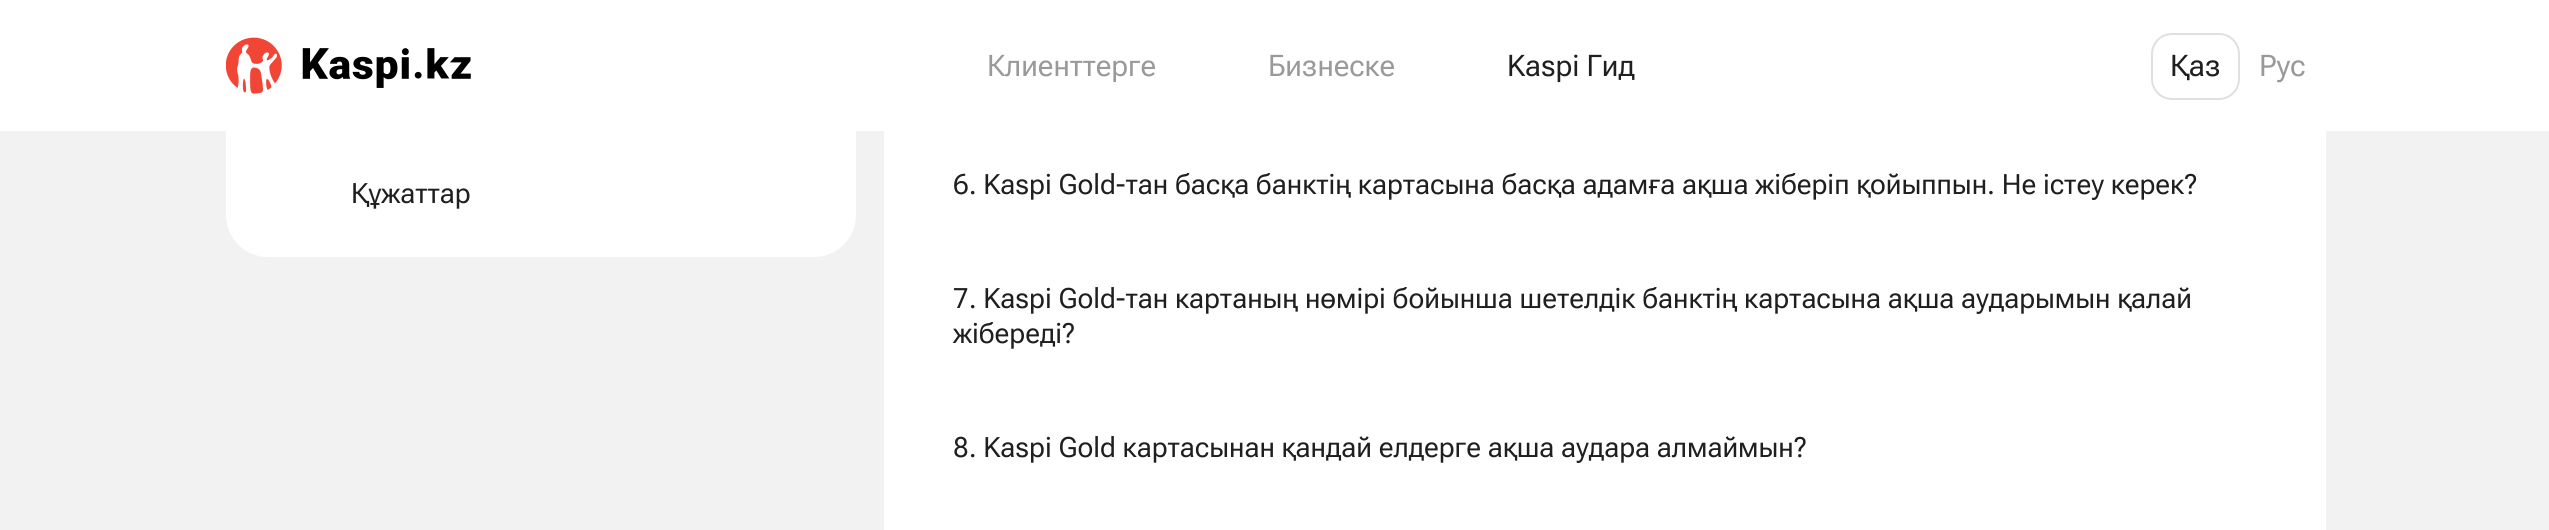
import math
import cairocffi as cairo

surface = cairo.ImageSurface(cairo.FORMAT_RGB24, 2549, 530)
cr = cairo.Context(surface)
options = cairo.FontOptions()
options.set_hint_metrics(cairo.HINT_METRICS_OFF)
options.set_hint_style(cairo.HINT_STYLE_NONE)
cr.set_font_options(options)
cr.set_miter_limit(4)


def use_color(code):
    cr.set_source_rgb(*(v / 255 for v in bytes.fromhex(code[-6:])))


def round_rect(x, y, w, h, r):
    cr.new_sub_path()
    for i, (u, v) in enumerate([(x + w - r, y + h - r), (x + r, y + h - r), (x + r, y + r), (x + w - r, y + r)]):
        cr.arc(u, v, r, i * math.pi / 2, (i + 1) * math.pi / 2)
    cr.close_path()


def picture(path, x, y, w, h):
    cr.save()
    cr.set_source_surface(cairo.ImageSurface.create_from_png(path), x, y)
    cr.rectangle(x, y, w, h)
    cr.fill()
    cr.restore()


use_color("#f2f2f2")
cr.paint()
use_color("#ffffff")
round_rect(226, -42, 630, 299, 42)
cr.fill()
cr.rectangle(0, 0, 2549, 131)
cr.fill()
picture("img1.png", 226, 37, 245, 57)
cr.select_font_face("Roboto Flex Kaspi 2", cairo.FONT_SLANT_ITALIC)
cr.set_font_size(29.75)
use_color("#999999")
cr.move_to(987, 76)
cr.show_text("Клиенттерге")
cr.move_to(1268, 76)
cr.show_text("Бизнеске")
use_color("#1f1f1f")
cr.move_to(1507, 76)
cr.show_text("Kaspi Гид")
round_rect(2152, 34, 87, 65, 20)
use_color("#e0e0e0")
cr.stroke()
cr.select_font_face("Roboto Flex")
use_color("#1f1f1f")
cr.move_to(2170, 76)
cr.show_text("Қаз")
use_color("#999999")
cr.move_to(2259, 76)
cr.show_text("Рус")
cr.select_font_face("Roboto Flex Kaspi", cairo.FONT_SLANT_ITALIC)
cr.set_font_size(28)
use_color("#1f1f1f")
cr.move_to(351, 203)
cr.show_text("Құжаттар")
use_color("#ffffff")
cr.rectangle(884, 131, 1442, 399)
cr.fill()
use_color("#1f1f1f")
cr.move_to(953, 194)
cr.show_text("6. Kaspi Gold-тан басқа банктің картасына басқа адамға ақша жіберіп қойыппын. Не істеу керек?")
cr.move_to(953, 308)
cr.show_text("7. Kaspi Gold-тан картаның нөмірі бойынша шетелдік банктің картасына ақша аударымын қалай")
cr.move_to(953, 343)
cr.show_text("жібереді?")
cr.move_to(953, 457)
cr.show_text("8. Kaspi Gold картасынан қандай елдерге ақша аудара алмаймын?")
surface.write_to_png("result.png")
